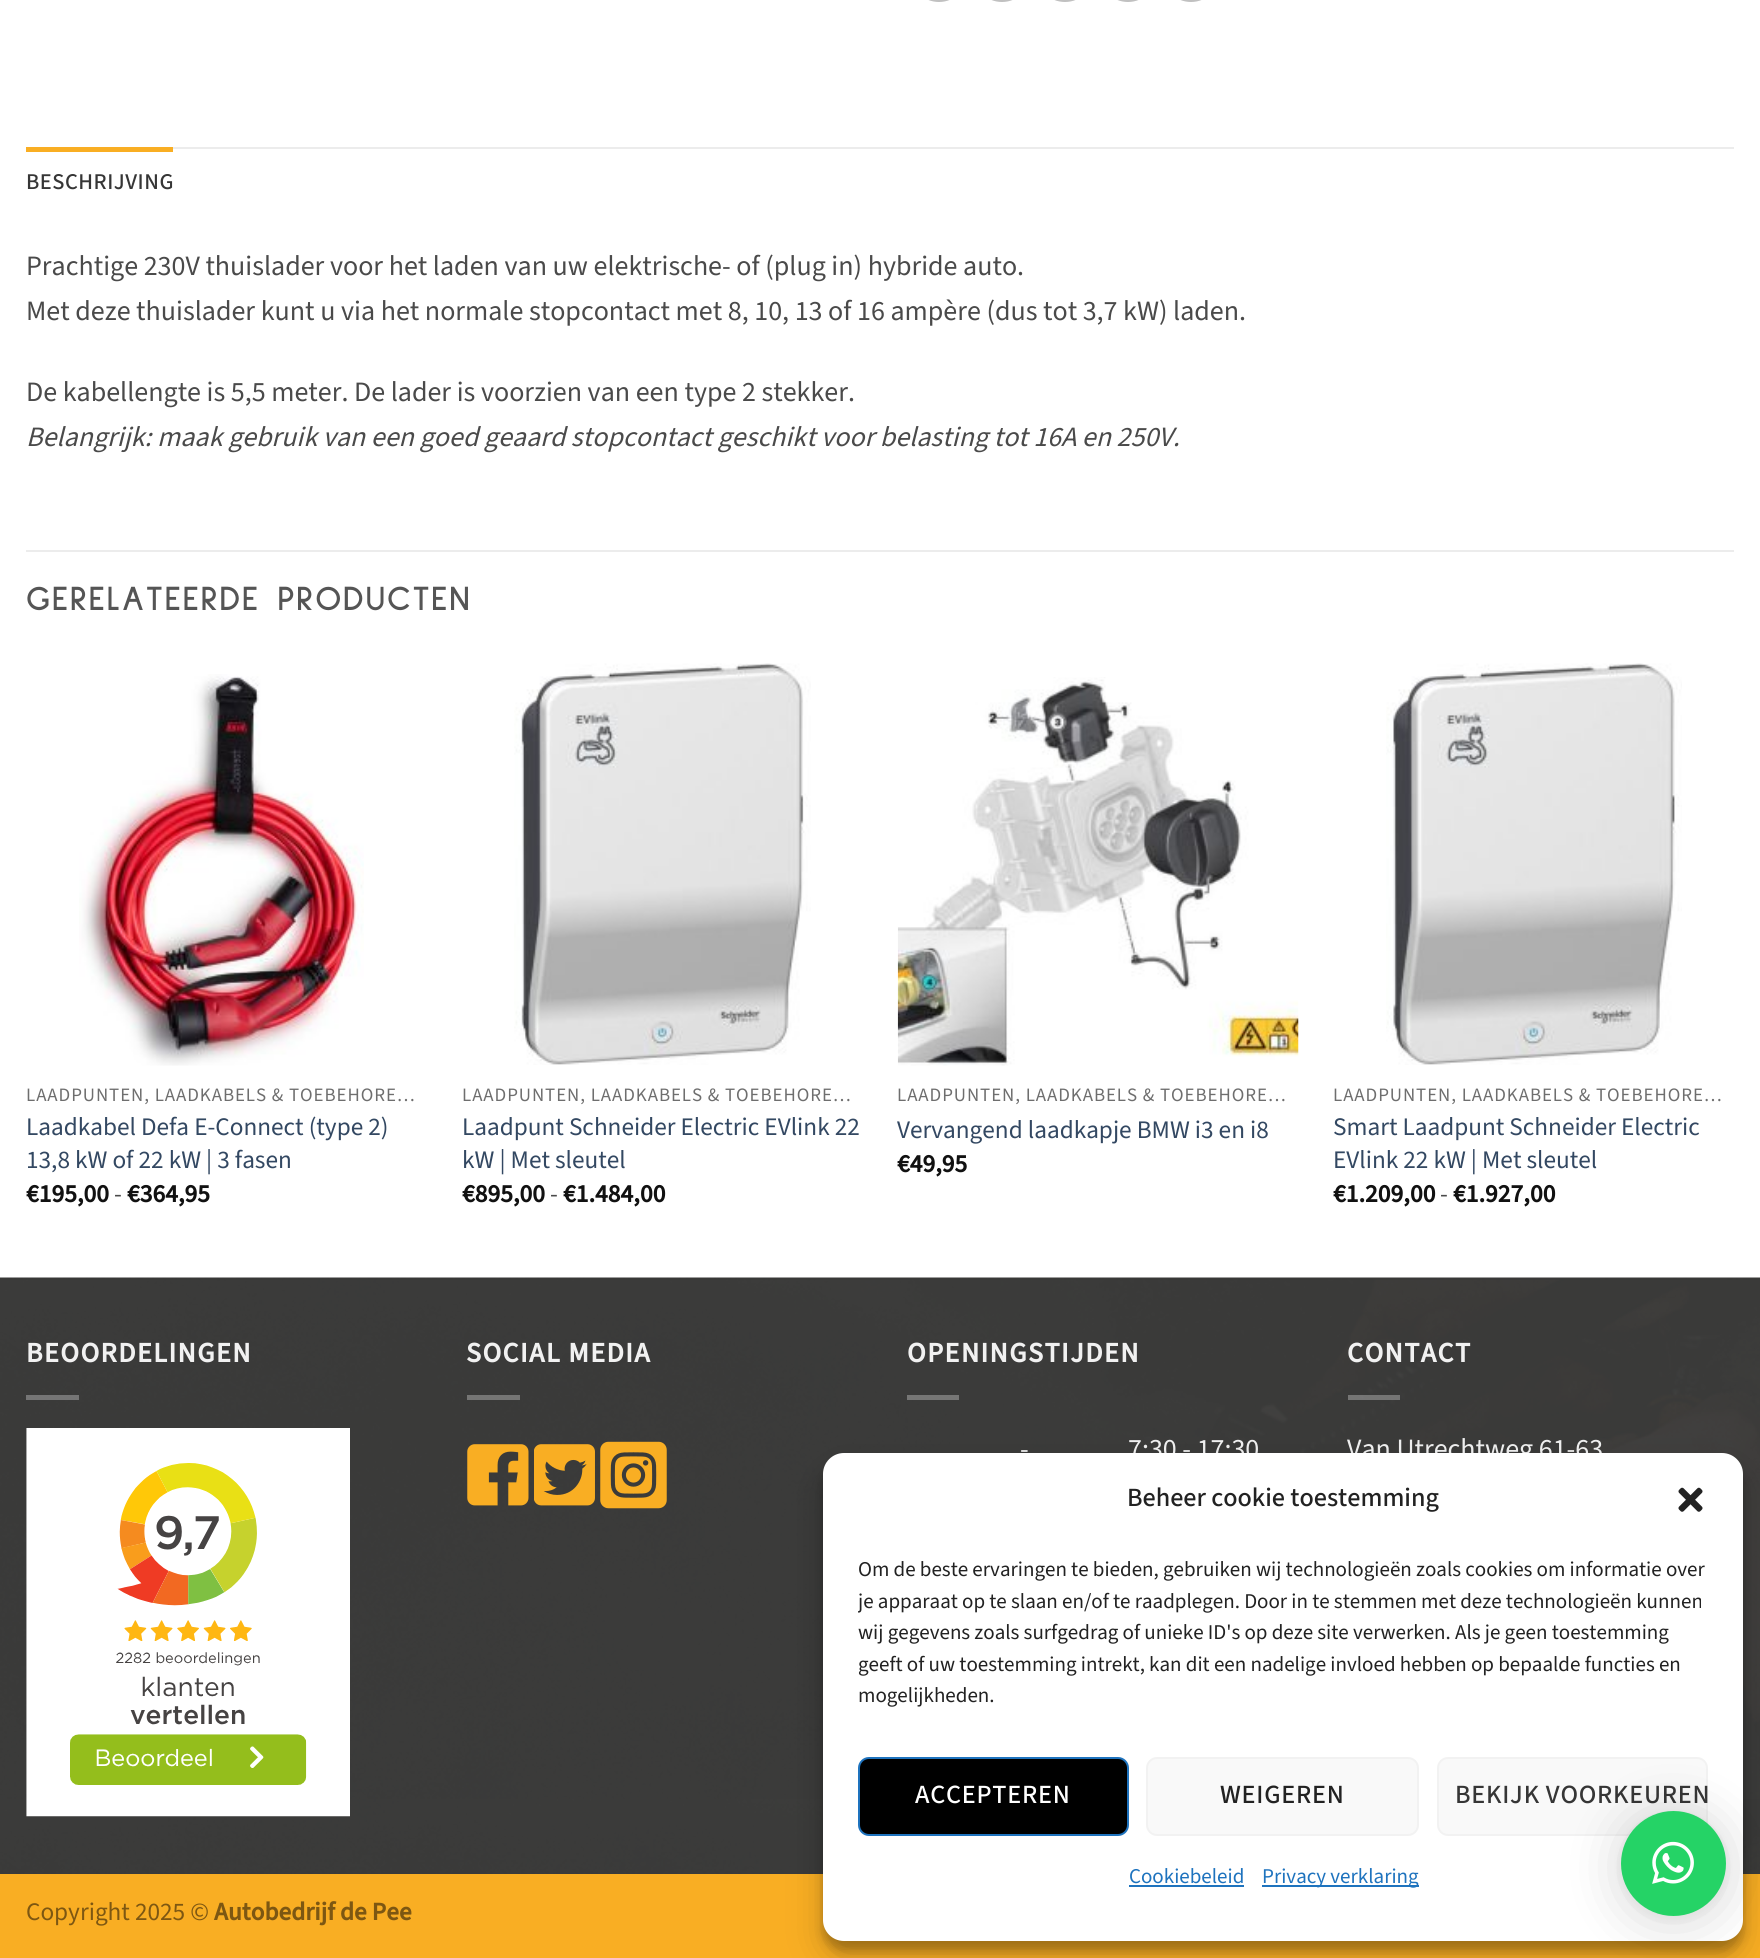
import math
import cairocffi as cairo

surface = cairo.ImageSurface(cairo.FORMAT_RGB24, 1760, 1958)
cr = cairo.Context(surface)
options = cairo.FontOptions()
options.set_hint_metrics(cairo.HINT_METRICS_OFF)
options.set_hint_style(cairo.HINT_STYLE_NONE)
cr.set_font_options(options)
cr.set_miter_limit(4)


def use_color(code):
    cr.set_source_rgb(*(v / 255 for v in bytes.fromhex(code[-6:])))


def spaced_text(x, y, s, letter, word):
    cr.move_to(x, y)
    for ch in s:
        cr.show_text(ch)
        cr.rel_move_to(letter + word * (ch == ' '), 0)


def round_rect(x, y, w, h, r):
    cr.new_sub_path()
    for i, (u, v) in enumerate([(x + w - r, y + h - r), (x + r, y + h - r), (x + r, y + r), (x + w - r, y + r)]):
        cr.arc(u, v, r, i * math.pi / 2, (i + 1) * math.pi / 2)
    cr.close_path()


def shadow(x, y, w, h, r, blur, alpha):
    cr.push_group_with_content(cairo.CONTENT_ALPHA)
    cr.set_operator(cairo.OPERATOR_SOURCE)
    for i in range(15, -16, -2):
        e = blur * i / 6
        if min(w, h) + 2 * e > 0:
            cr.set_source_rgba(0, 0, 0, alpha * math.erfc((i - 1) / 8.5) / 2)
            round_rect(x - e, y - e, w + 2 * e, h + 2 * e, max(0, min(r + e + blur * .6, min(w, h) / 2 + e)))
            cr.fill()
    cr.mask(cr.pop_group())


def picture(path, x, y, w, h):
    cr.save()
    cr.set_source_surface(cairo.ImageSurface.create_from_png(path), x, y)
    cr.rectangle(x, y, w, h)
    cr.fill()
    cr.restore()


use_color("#ffffff")
cr.paint()
round_rect(912, -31, 54, 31, 27)
use_color("#c0c0c0")
cr.set_line_width(4)
cr.stroke()
round_rect(975, -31, 54, 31, 27)
cr.stroke()
round_rect(1038, -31, 54, 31, 27)
cr.stroke()
round_rect(1101, -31, 54, 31, 27)
cr.stroke()
round_rect(1164, -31, 54, 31, 27)
cr.stroke()
use_color("#ececec")
cr.rectangle(173, 147, 1561, 2)
cr.fill()
use_color("#f9ae23")
cr.rectangle(26, 147, 147, 5)
cr.fill()
cr.select_font_face("Source Sans 3 Medium")
cr.set_font_size(22.5)
use_color("#363636")
spaced_text(26, 189, "BESCHRIJVING", 0.5, 0)
cr.select_font_face("Source Sans 3")
cr.set_font_size(28)
use_color("#4a4a4a")
cr.move_to(26, 275)
cr.show_text("Prachtige 230V thuislader voor het laden van uw elektrische- of (plug in) hybride auto.")
cr.move_to(26, 320)
cr.show_text("Met deze thuislader kunt u via het normale stopcontact met 8, 10, 13 of 16 ampère (dus tot 3,7 kW) laden.")
cr.move_to(26, 401)
cr.show_text("De kabellengte is 5,5 meter. De lader is voorzien van een type 2 stekker.")
cr.select_font_face("Source Sans 3", cairo.FONT_SLANT_ITALIC)
cr.move_to(26, 446)
cr.show_text("Belangrijk: maak gebruik van een goed geaard stopcontact geschikt voor belasting tot 16A en 250V.")
use_color("#ececec")
cr.rectangle(26, 550, 1708, 2)
cr.fill()
cr.select_font_face("Sulphur Point", cairo.FONT_SLANT_NORMAL, cairo.FONT_WEIGHT_BOLD)
cr.set_font_size(35)
use_color("#555555")
spaced_text(26, 610, "GERELATEERDE PRODUCTEN", 1.75, 0)
picture("img1.png", 79, 674, 285, 392)
cr.select_font_face("Source Sans 3")
cr.set_font_size(18.9)
use_color("#6e6e6e")
spaced_text(26, 1101, "LAADPUNTEN, LAADKABELS & TOEBEHORE…", 0.95, 0)
cr.set_font_size(25.25)
use_color("#334862")
cr.move_to(26, 1135)
cr.show_text("Laadkabel Defa E-Connect (type 2)")
cr.move_to(26, 1168)
cr.show_text("13,8 kW of 22 kW | 3 fasen")
cr.select_font_face("Source Sans 3", cairo.FONT_SLANT_NORMAL, cairo.FONT_WEIGHT_BOLD)
use_color("#111111")
cr.move_to(26, 1202)
cr.show_text("€195,00")
cr.select_font_face("Source Sans 3")
use_color("#4a4a4a")
cr.move_to(114, 1202)
cr.show_text("-")
cr.select_font_face("Source Sans 3", cairo.FONT_SLANT_NORMAL, cairo.FONT_WEIGHT_BOLD)
use_color("#111111")
cr.move_to(127, 1202)
cr.show_text("€364,95")
picture("img2.png", 514, 663, 297, 402)
cr.select_font_face("Source Sans 3")
cr.set_font_size(18.9)
use_color("#6e6e6e")
spaced_text(462, 1101, "LAADPUNTEN, LAADKABELS & TOEBEHORE…", 0.95, 0)
cr.set_font_size(25.25)
use_color("#334862")
cr.move_to(462, 1135)
cr.show_text("Laadpunt Schneider Electric EVlink 22")
cr.move_to(462, 1168)
cr.show_text("kW | Met sleutel")
cr.select_font_face("Source Sans 3", cairo.FONT_SLANT_NORMAL, cairo.FONT_WEIGHT_BOLD)
use_color("#111111")
cr.move_to(462, 1202)
cr.show_text("€895,00")
cr.select_font_face("Source Sans 3")
use_color("#4a4a4a")
cr.move_to(550, 1202)
cr.show_text("-")
cr.select_font_face("Source Sans 3", cairo.FONT_SLANT_NORMAL, cairo.FONT_WEIGHT_BOLD)
use_color("#111111")
cr.move_to(563, 1202)
cr.show_text("€1.484,00")
picture("img3.png", 897, 677, 402, 389)
cr.select_font_face("Source Sans 3")
cr.set_font_size(18.9)
use_color("#6e6e6e")
spaced_text(897, 1101, "LAADPUNTEN, LAADKABELS & TOEBEHORE…", 0.95, 0)
cr.set_font_size(25.25)
use_color("#334862")
cr.move_to(897, 1138)
cr.show_text("Vervangend laadkapje BMW i3 en i8")
cr.select_font_face("Source Sans 3", cairo.FONT_SLANT_NORMAL, cairo.FONT_WEIGHT_BOLD)
use_color("#111111")
cr.move_to(897, 1172)
cr.show_text("€49,95")
picture("img4.png", 1386, 663, 296, 402)
cr.select_font_face("Source Sans 3")
cr.set_font_size(18.9)
use_color("#6e6e6e")
spaced_text(1333, 1101, "LAADPUNTEN, LAADKABELS & TOEBEHORE…", 0.95, 0)
cr.set_font_size(25.25)
use_color("#334862")
cr.move_to(1333, 1135)
cr.show_text("Smart Laadpunt Schneider Electric")
cr.move_to(1333, 1168)
cr.show_text("EVlink 22 kW | Met sleutel")
cr.select_font_face("Source Sans 3", cairo.FONT_SLANT_NORMAL, cairo.FONT_WEIGHT_BOLD)
use_color("#111111")
cr.move_to(1333, 1202)
cr.show_text("€1.209,00")
cr.select_font_face("Source Sans 3")
use_color("#4a4a4a")
cr.move_to(1440, 1202)
cr.show_text("-")
cr.select_font_face("Source Sans 3", cairo.FONT_SLANT_NORMAL, cairo.FONT_WEIGHT_BOLD)
use_color("#111111")
cr.move_to(1453, 1202)
cr.show_text("€1.927,00")
picture("img5.png", 0, 1277, 1760, 597)
cr.set_source_rgba(0, 0, 0, 0.05)
cr.rectangle(0, 1278, 1760, 2)
cr.fill()
cr.set_font_size(28)
use_color("#f1f1f1")
spaced_text(26, 1362, "BEOORDELINGEN", 1.4, 0)
use_color("#757575")
cr.rectangle(26, 1395, 53, 5)
cr.fill()
picture("img6.png", 26, 1428, 324, 389)
use_color("#f1f1f1")
spaced_text(466, 1362, "SOCIAL MEDIA", 1.4, 0)
use_color("#757574")
cr.rectangle(467, 1395, 53, 5)
cr.fill()
picture("img7.png", 467, 1444, 62, 62)
picture("img8.png", 534, 1444, 61, 62)
picture("img9.png", 600, 1441, 67, 68)
use_color("#f1f1f1")
spaced_text(907, 1362, "OPENINGSTIJDEN", 1.4, 0)
use_color("#767675")
cr.rectangle(907, 1395, 52, 5)
cr.fill()
cr.select_font_face("Source Sans 3")
use_color("#f1f1f1")
cr.move_to(1020, 1458)
cr.show_text("-")
cr.move_to(1128, 1458)
cr.show_text("7:30 - 17:30")
cr.select_font_face("Source Sans 3", cairo.FONT_SLANT_NORMAL, cairo.FONT_WEIGHT_BOLD)
spaced_text(1347, 1362, "CONTACT", 1.4, 0)
cr.set_source_rgba(1, 1, 1, 0.3)
cr.rectangle(1348, 1395, 52, 5)
cr.fill()
cr.select_font_face("Source Sans 3")
use_color("#f1f1f1")
cr.move_to(1347, 1458)
cr.show_text("Van Utrechtweg 61-63")
use_color("#f9ae23")
cr.rectangle(0, 1874, 1760, 84)
cr.fill()
cr.set_font_size(25.25)
use_color("#7d5712")
cr.move_to(26, 1920)
cr.show_text("Copyright 2025 ©")
cr.select_font_face("Source Sans 3", cairo.FONT_SLANT_NORMAL, cairo.FONT_WEIGHT_BOLD)
cr.move_to(214, 1920)
cr.show_text("Autobedrijf de Pee")
use_color("#000000")
shadow(823, 1463, 920, 488, 21, 5, 0.23)
shadow(823, 1470, 920, 488, 21, 17.5, 0.19)
use_color("#ffffff")
round_rect(823, 1453, 920, 488, 21)
cr.fill()
cr.select_font_face("Source Sans 3 Medium")
cr.set_font_size(26.25)
use_color("#222222")
cr.move_to(1127, 1506)
cr.show_text("Beheer cookie toestemming")
picture("img10.png", 1678, 1487, 25, 25)
cr.select_font_face("Source Sans 3")
cr.set_font_size(21)
cr.move_to(858, 1576)
cr.show_text("Om de beste ervaringen te bieden, gebruiken wij technologieën zoals cookies om informatie over")
cr.save()
cr.rectangle(858, 1556, 850, 166)
cr.clip()
cr.move_to(858, 1608)
cr.show_text("je apparaat op te slaan en/of te raadplegen. Door in te stemmen met deze technologieën kunnen")
cr.restore()
cr.move_to(858, 1639)
cr.show_text("wij gegevens zoals surfgedrag of unieke ID's op deze site verwerken. Als je geen toestemming")
cr.move_to(858, 1671)
cr.show_text("geeft of uw toestemming intrekt, kan dit een nadelige invloed hebben op bepaalde functies en")
cr.move_to(858, 1702)
cr.show_text("mogelijkheden.")
use_color("#000000")
round_rect(859, 1758, 269, 77, 10)
cr.fill_preserve()
use_color("#1e73be")
cr.set_line_width(2)
cr.stroke()
cr.select_font_face("Source Sans 3 Medium")
cr.set_font_size(26.25)
use_color("#ffffff")
spaced_text(915, 1803, "ACCEPTEREN", 0.75, 0)
use_color("#f9f9f9")
round_rect(1147, 1758, 271, 77, 10)
cr.fill_preserve()
use_color("#f2f2f2")
cr.stroke()
use_color("#222222")
spaced_text(1220, 1803, "WEIGEREN", 0.75, 0)
use_color("#f9f9f9")
round_rect(1438, 1758, 269, 77, 10)
cr.fill_preserve()
use_color("#f2f2f2")
cr.stroke()
use_color("#363636")
spaced_text(1455, 1803, "BEKIJK VOORKEUREN", 0.75, 0)
cr.select_font_face("Source Sans 3")
cr.set_font_size(21)
use_color("#1e73be")
cr.move_to(1129, 1883)
cr.show_text("Cookiebeleid")
cr.rectangle(1129, 1885, 115, 2)
cr.fill()
cr.rectangle(1262, 1885, 157, 2)
cr.fill()
cr.move_to(1262, 1883)
cr.show_text("Privacy verklaring")
use_color("#000000")
shadow(1621, 1815, 105, 105, 52.5, 28, 0.16)
shadow(1621, 1813, 105, 105, 52.5, 5, 0.06)
use_color("#25d366")
cr.arc(1673.5, 1863.5, 52.5, 0, 2 * math.pi)
cr.fill()
picture("img11.png", 1652, 1841, 42, 43)
surface.write_to_png("result.png")
